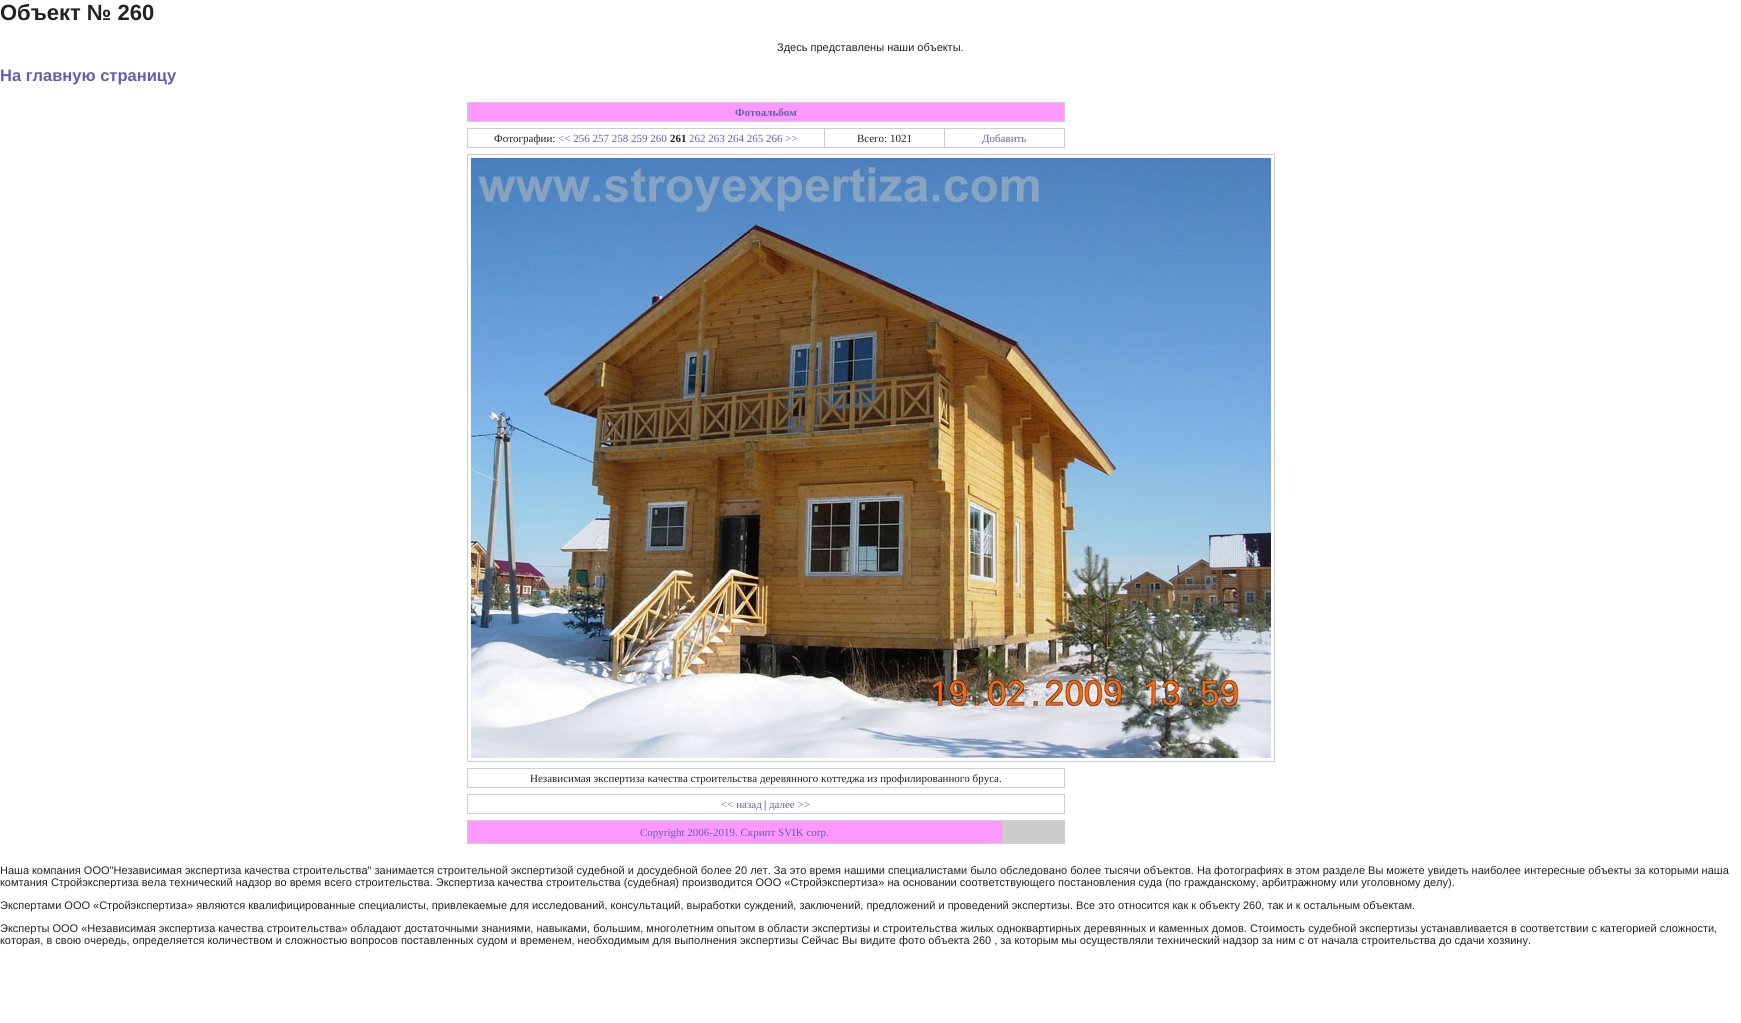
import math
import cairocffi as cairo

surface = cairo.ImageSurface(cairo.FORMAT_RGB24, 1741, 1023)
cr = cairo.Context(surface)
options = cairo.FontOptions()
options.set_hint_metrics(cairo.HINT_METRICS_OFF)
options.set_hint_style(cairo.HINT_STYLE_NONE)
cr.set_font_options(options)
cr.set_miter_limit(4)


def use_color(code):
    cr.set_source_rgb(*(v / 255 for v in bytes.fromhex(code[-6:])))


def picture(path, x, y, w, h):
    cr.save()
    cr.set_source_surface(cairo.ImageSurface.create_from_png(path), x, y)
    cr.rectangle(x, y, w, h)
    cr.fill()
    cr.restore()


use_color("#ffffff")
cr.paint()
cr.select_font_face("Liberation Sans", cairo.FONT_SLANT_NORMAL, cairo.FONT_WEIGHT_BOLD)
cr.set_font_size(22)
use_color("#222222")
cr.move_to(0, 20)
cr.show_text("Объект № 260")
cr.select_font_face("Liberation Sans")
cr.set_font_size(11)
cr.move_to(777, 51)
cr.show_text("Здесь представлены наши объекты.")
cr.select_font_face("Liberation Sans", cairo.FONT_SLANT_NORMAL, cairo.FONT_WEIGHT_BOLD)
cr.set_font_size(16.5)
use_color("#6060b0")
cr.move_to(0, 81)
cr.show_text("На главную страницу")
use_color("#cccccc")
cr.rectangle(467, 102, 598, 20)
cr.fill()
use_color("#ff99ff")
cr.rectangle(468, 103, 596, 18)
cr.fill()
cr.select_font_face("Liberation Serif", cairo.FONT_SLANT_NORMAL, cairo.FONT_WEIGHT_BOLD)
cr.set_font_size(11)
use_color("#6060b0")
cr.move_to(735, 116)
cr.show_text("Фотоальбом")
use_color("#cccccc")
cr.rectangle(467, 128, 598, 20)
cr.fill()
use_color("#ffffff")
cr.rectangle(468, 129, 356, 18)
cr.fill()
cr.select_font_face("Liberation Serif")
use_color("#222222")
cr.move_to(494, 142)
cr.show_text("Фотографии:")
use_color("#6060b0")
cr.move_to(558, 142)
cr.show_text("<< 256 257 258 259 260")
cr.select_font_face("Liberation Serif", cairo.FONT_SLANT_NORMAL, cairo.FONT_WEIGHT_BOLD)
use_color("#222222")
cr.move_to(670, 142)
cr.show_text("261")
cr.select_font_face("Liberation Serif")
use_color("#6060b0")
cr.move_to(689, 142)
cr.show_text("262 263 264 265 266 >>")
use_color("#ffffff")
cr.rectangle(825, 129, 119, 18)
cr.fill()
use_color("#222222")
cr.move_to(857, 142)
cr.show_text("Всего: 1021")
use_color("#ffffff")
cr.rectangle(945, 129, 119, 18)
cr.fill()
use_color("#6060b0")
cr.move_to(982, 142)
cr.show_text("Добавить")
use_color("#cccccc")
cr.rectangle(467, 154, 808, 608)
cr.fill()
use_color("#ffffff")
cr.rectangle(468, 155, 806, 606)
cr.fill()
picture("img1.png", 471, 158, 800, 600)
use_color("#cccccc")
cr.rectangle(467, 768, 598, 20)
cr.fill()
use_color("#ffffff")
cr.rectangle(468, 769, 596, 18)
cr.fill()
use_color("#222222")
cr.move_to(530, 782)
cr.show_text("Независимая экспертиза качества строительства деревянного коттеджа из профилированного бруса.")
use_color("#cccccc")
cr.rectangle(467, 794, 598, 20)
cr.fill()
use_color("#ffffff")
cr.rectangle(468, 795, 596, 18)
cr.fill()
use_color("#6060b0")
cr.move_to(721, 808)
cr.show_text("<< назад")
use_color("#222222")
cr.move_to(764, 808)
cr.show_text("|")
use_color("#6060b0")
cr.move_to(769, 808)
cr.show_text("далее >>")
use_color("#cccccc")
cr.rectangle(467, 820, 598, 24)
cr.fill()
use_color("#ff99ff")
cr.rectangle(468, 821, 534, 22)
cr.fill()
use_color("#6060b0")
cr.move_to(640, 836)
cr.show_text("Copyright 2006-2019. Скрипт SVIK corp.")
cr.select_font_face("Liberation Sans")
use_color("#222222")
cr.move_to(0, 874)
cr.show_text("Наша компания ООО\"Независимая экспертиза качества строительства\" занимается строительной экспертизой судебной и досудебной более 20 лет. За это время нашими специалистами было обследовано более тысячи объектов. На фотографиях в этом разделе Вы можете увидеть наиболее интересные объекты за которыми наша")
cr.move_to(0, 886)
cr.show_text("комтания Стройэкспертиза вела технический надзор во время всего строительства. Экспертиза качества строительства (cудебная) производится ООО «Стройэкспертиза» на основании соответствующего постановления суда (по гражданскому, арбитражному или уголовному делу).")
cr.move_to(0, 909)
cr.show_text("Экспертами ООО «Стройэкспертиза» являются квалифицированные специалисты, привлекаемые для исследований, консультаций, выработки суждений, заключений, предложений и проведений экспертизы. Все это относится как к объекту 260, так и к остальным объектам.")
cr.move_to(0, 932)
cr.show_text("Эксперты ООО «Независимая экспертиза качества строительства» обладают достаточными знаниями, навыками, большим, многолетним опытом в области экспертизы и строительства жилых одноквартирных деревянных и каменных домов. Стоимость судебной экспертизы устанавливается в соответствии с категорией сложности,")
cr.move_to(0, 944)
cr.show_text("которая, в свою очередь, определяется количеством и сложностью вопросов поставленных судом и временем, необходимым для выполнения экспертизы Сейчас Вы видите фото объекта 260 , за которым мы осуществляли технический надзор за ним с от начала строительства до сдачи хозяину.")
surface.write_to_png("result.png")
